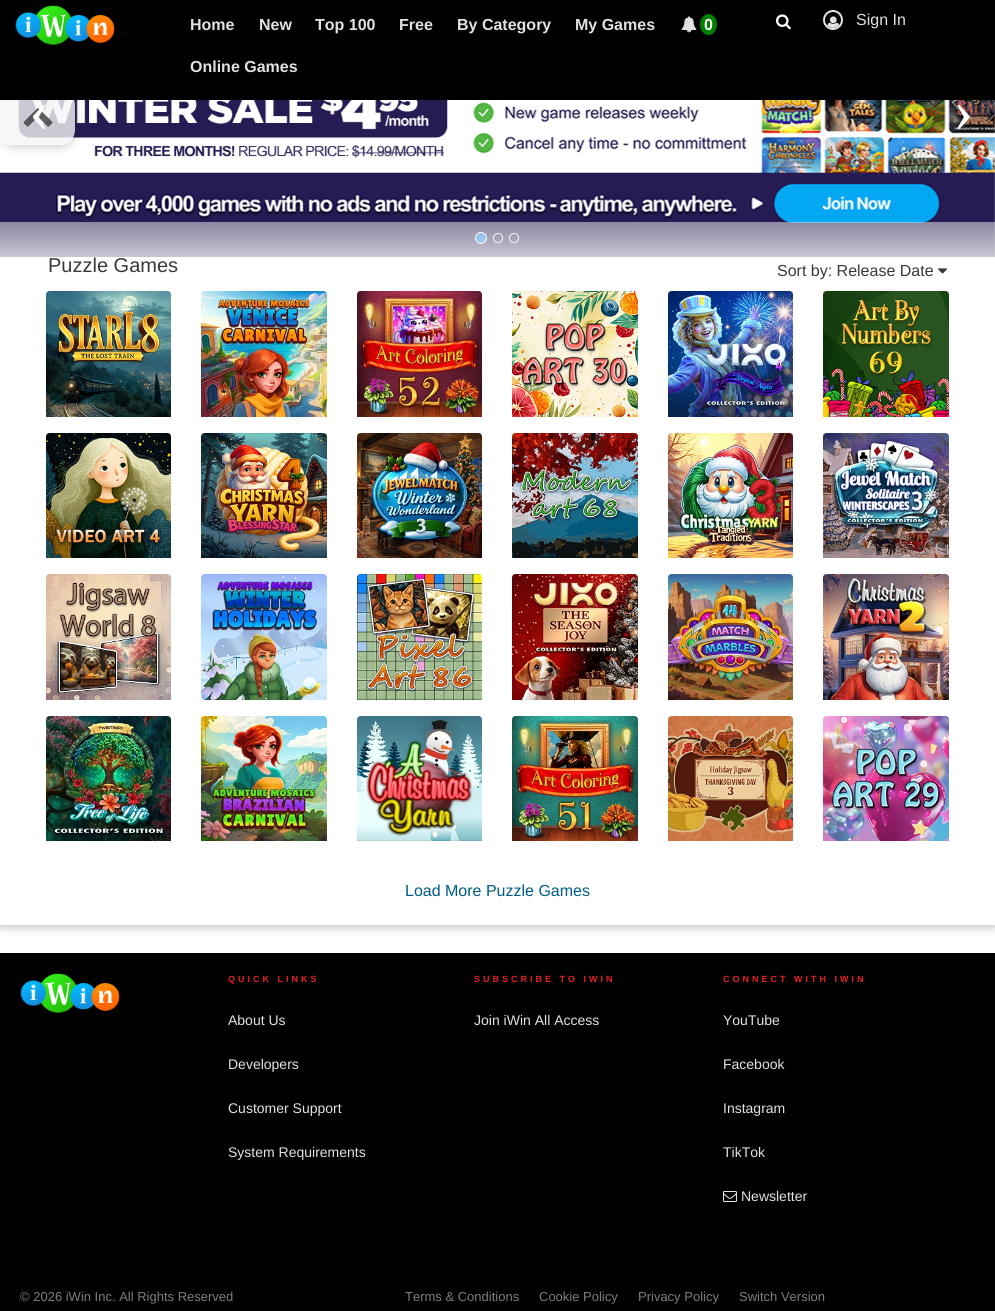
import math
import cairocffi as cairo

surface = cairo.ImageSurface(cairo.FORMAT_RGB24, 995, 1311)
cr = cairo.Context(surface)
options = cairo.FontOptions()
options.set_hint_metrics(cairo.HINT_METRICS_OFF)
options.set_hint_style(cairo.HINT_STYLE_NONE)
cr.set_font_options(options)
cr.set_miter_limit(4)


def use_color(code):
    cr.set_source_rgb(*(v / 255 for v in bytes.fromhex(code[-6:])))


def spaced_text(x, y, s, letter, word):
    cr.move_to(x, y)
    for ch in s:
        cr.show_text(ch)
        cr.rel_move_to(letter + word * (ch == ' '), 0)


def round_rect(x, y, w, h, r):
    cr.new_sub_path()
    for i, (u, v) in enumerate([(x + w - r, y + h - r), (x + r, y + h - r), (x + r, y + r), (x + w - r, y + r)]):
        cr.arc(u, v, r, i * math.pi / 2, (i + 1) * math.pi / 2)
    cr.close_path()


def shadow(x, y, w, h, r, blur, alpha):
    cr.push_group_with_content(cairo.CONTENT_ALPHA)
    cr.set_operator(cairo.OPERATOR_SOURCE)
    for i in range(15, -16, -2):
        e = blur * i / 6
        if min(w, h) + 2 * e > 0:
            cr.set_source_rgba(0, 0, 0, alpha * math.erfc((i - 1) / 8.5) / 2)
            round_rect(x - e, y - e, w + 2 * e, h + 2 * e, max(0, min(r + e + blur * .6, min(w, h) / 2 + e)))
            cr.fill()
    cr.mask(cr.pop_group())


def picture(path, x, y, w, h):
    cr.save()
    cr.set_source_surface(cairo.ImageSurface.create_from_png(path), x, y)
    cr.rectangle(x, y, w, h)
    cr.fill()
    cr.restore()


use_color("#ffffff")
cr.paint()
cr.save()
cr.set_fill_rule(cairo.FILL_RULE_EVEN_ODD)
cr.new_path()
cr.move_to(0, 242)
cr.line_to(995, 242)
cr.line_to(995, 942)
cr.line_to(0, 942)
cr.close_path()
cr.move_to(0, 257)
cr.line_to(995, 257)
cr.line_to(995, 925)
cr.line_to(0, 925)
cr.close_path()
cr.clip()
use_color("#000000")
shadow(0, 258, 995, 668, 0, 5, 0.3)
cr.restore()
picture("img6.png", 0, 100, 995, 157)
cr.save()
cr.set_fill_rule(cairo.FILL_RULE_EVEN_ODD)
cr.new_path()
cr.move_to(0, 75)
cr.line_to(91, 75)
cr.line_to(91, 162)
cr.line_to(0, 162)
cr.close_path()
cr.move_to(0, 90)
cr.line_to(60, 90)
cr.curve_to(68.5, 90, 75, 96.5, 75, 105)
cr.line_to(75, 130)
cr.curve_to(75, 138.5, 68.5, 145, 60, 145)
cr.line_to(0, 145)
cr.close_path()
cr.clip()
use_color("#000000")
shadow(0, 91, 75, 55, 15, 5, 0.24)
cr.restore()
cr.set_source_rgba(0.961, 0.961, 0.961, 0.8)
cr.new_path()
cr.move_to(0, 90)
cr.line_to(60, 90)
cr.curve_to(68.5, 90, 75, 96.5, 75, 105)
cr.line_to(75, 130)
cr.curve_to(75, 138.5, 68.5, 145, 60, 145)
cr.line_to(0, 145)
cr.close_path()
cr.fill()
use_color("#000000")
cr.rectangle(0, 0, 995, 100)
cr.fill()
picture("img1.png", 15, 5, 100, 40)
cr.select_font_face("Liberation Sans", cairo.FONT_SLANT_NORMAL, cairo.FONT_WEIGHT_BOLD)
cr.set_font_size(16)
use_color("#e2e2e2")
cr.move_to(190, 30)
cr.show_text("Home")
cr.move_to(259, 30)
cr.show_text("New")
cr.move_to(315, 30)
cr.show_text("Top 100")
cr.move_to(399, 30)
cr.show_text("Free")
cr.move_to(457, 30)
cr.show_text("By Category")
cr.move_to(575, 30)
cr.show_text("My Games")
picture("img2.png", 681, 16, 16, 17)
use_color("#008000")
cr.new_path()
cr.move_to(708.5, 14)
cr.curve_to(713, 14, 717, 18.5, 717, 24.5)
cr.curve_to(717, 30.5, 713, 35, 708.5, 35)
cr.curve_to(704, 35, 700, 30.5, 700, 24.5)
cr.curve_to(700, 18.5, 704, 14, 708.5, 14)
cr.close_path()
cr.fill()
use_color("#ffffff")
cr.move_to(704, 30)
cr.show_text("0")
use_color("#e2e2e2")
cr.move_to(190, 72)
cr.show_text("Online Games")
picture("img3.png", 776, 14, 15, 16)
cr.arc(833, 20, 9, 0, 2 * math.pi)
cr.stroke()
picture("img4.png", 827, 16, 12, 12)
cr.select_font_face("Liberation Sans")
cr.move_to(856, 25)
cr.show_text("Sign In")
picture("img5.png", 23, 108, 30, 19)
cr.select_font_face("Liberation Serif")
cr.set_font_size(62)
use_color("#ffffff")
cr.move_to(29, 131)
cr.show_text("‹")
cr.move_to(953, 131)
cr.show_text("›")
use_color("#0275d8")
cr.new_path()
cr.arc(481, 238, 5.5, 0, 2 * math.pi)
cr.fill_preserve()
use_color("#ffffff")
cr.set_line_width(1)
cr.stroke()
cr.arc(498, 238, 4.5, 0, 2 * math.pi)
cr.stroke()
cr.arc(514, 238, 4.5, 0, 2 * math.pi)
cr.stroke()
gradient = cairo.LinearGradient(0, 222, 0, 284)
gradient.add_color_stop_rgba(0, 0.961, 0.961, 0.961, 0.5)
gradient.add_color_stop_rgba(1, 0.961, 0.961, 0.961, 1)
cr.set_source(gradient)
cr.rectangle(0, 222, 995, 35)
cr.fill()
cr.select_font_face("Liberation Sans")
cr.set_font_size(20)
use_color("#373a3c")
cr.move_to(48, 272)
cr.show_text("Puzzle Games")
cr.set_font_size(16)
cr.move_to(777, 276)
cr.show_text("Sort by: Release Date")
picture("img7.png", 938, 268, 10, 6)
picture("img8.png", 46, 291, 125, 126)
picture("img9.png", 201, 291, 126, 126)
picture("img10.png", 357, 291, 125, 126)
picture("img11.png", 512, 291, 126, 126)
picture("img12.png", 668, 291, 125, 126)
picture("img13.png", 823, 291, 126, 126)
picture("img14.png", 46, 433, 125, 125)
picture("img15.png", 201, 433, 126, 125)
picture("img16.png", 357, 433, 125, 125)
picture("img17.png", 512, 433, 126, 125)
picture("img18.png", 668, 433, 125, 125)
picture("img19.png", 823, 433, 126, 125)
picture("img20.png", 46, 574, 125, 126)
picture("img21.png", 201, 574, 126, 126)
picture("img22.png", 357, 574, 125, 126)
picture("img23.png", 512, 574, 126, 126)
picture("img24.png", 668, 574, 125, 126)
picture("img25.png", 823, 574, 126, 126)
picture("img26.png", 46, 716, 125, 125)
picture("img27.png", 201, 716, 126, 125)
picture("img28.png", 357, 716, 125, 125)
picture("img29.png", 512, 716, 126, 125)
picture("img30.png", 668, 716, 125, 125)
picture("img31.png", 823, 716, 126, 125)
use_color("#005c86")
cr.move_to(405, 896)
cr.show_text("Load More Puzzle Games")
use_color("#000000")
cr.rectangle(0, 953, 995, 358)
cr.fill()
picture("img32.png", 20, 973, 100, 40)
cr.select_font_face("Liberation Sans", cairo.FONT_SLANT_NORMAL, cairo.FONT_WEIGHT_BOLD)
cr.set_font_size(9)
use_color("#e91f22")
spaced_text(228, 982, "QUICK LINKS", 3, 0)
cr.select_font_face("Liberation Sans")
cr.set_font_size(14)
use_color("#e2e2e2")
cr.move_to(228, 1025)
cr.show_text("About Us")
cr.move_to(228, 1069)
cr.show_text("Developers")
cr.move_to(228, 1113)
cr.show_text("Customer Support")
cr.move_to(228, 1157)
cr.show_text("System Requirements")
cr.select_font_face("Liberation Sans", cairo.FONT_SLANT_NORMAL, cairo.FONT_WEIGHT_BOLD)
cr.set_font_size(9)
use_color("#e91f22")
spaced_text(474, 982, "SUBSCRIBE TO IWIN", 3, 0)
cr.select_font_face("Liberation Sans")
cr.set_font_size(14)
use_color("#e2e2e2")
cr.move_to(474, 1025)
cr.show_text("Join iWin All Access")
cr.select_font_face("Liberation Sans", cairo.FONT_SLANT_NORMAL, cairo.FONT_WEIGHT_BOLD)
cr.set_font_size(9)
use_color("#e91f22")
spaced_text(723, 982, "CONNECT WITH IWIN", 3, 0)
cr.select_font_face("Liberation Sans")
cr.set_font_size(14)
use_color("#e2e2e2")
cr.move_to(723, 1025)
cr.show_text("YouTube")
cr.move_to(723, 1069)
cr.show_text("Facebook")
cr.move_to(723, 1113)
cr.show_text("Instagram")
cr.move_to(723, 1157)
cr.show_text("TikTok")
picture("img33.png", 723, 1191, 14, 11)
cr.move_to(741, 1201)
cr.show_text("Newsletter")
cr.set_font_size(13)
use_color("#7c7e7f")
cr.move_to(20, 1301)
cr.show_text("© 2026 iWin Inc. All Rights Reserved")
cr.move_to(405, 1301)
cr.show_text("Terms & Conditions")
cr.move_to(539, 1301)
cr.show_text("Cookie Policy")
cr.move_to(638, 1301)
cr.show_text("Privacy Policy")
cr.move_to(739, 1301)
cr.show_text("Switch Version")
surface.write_to_png("result.png")
